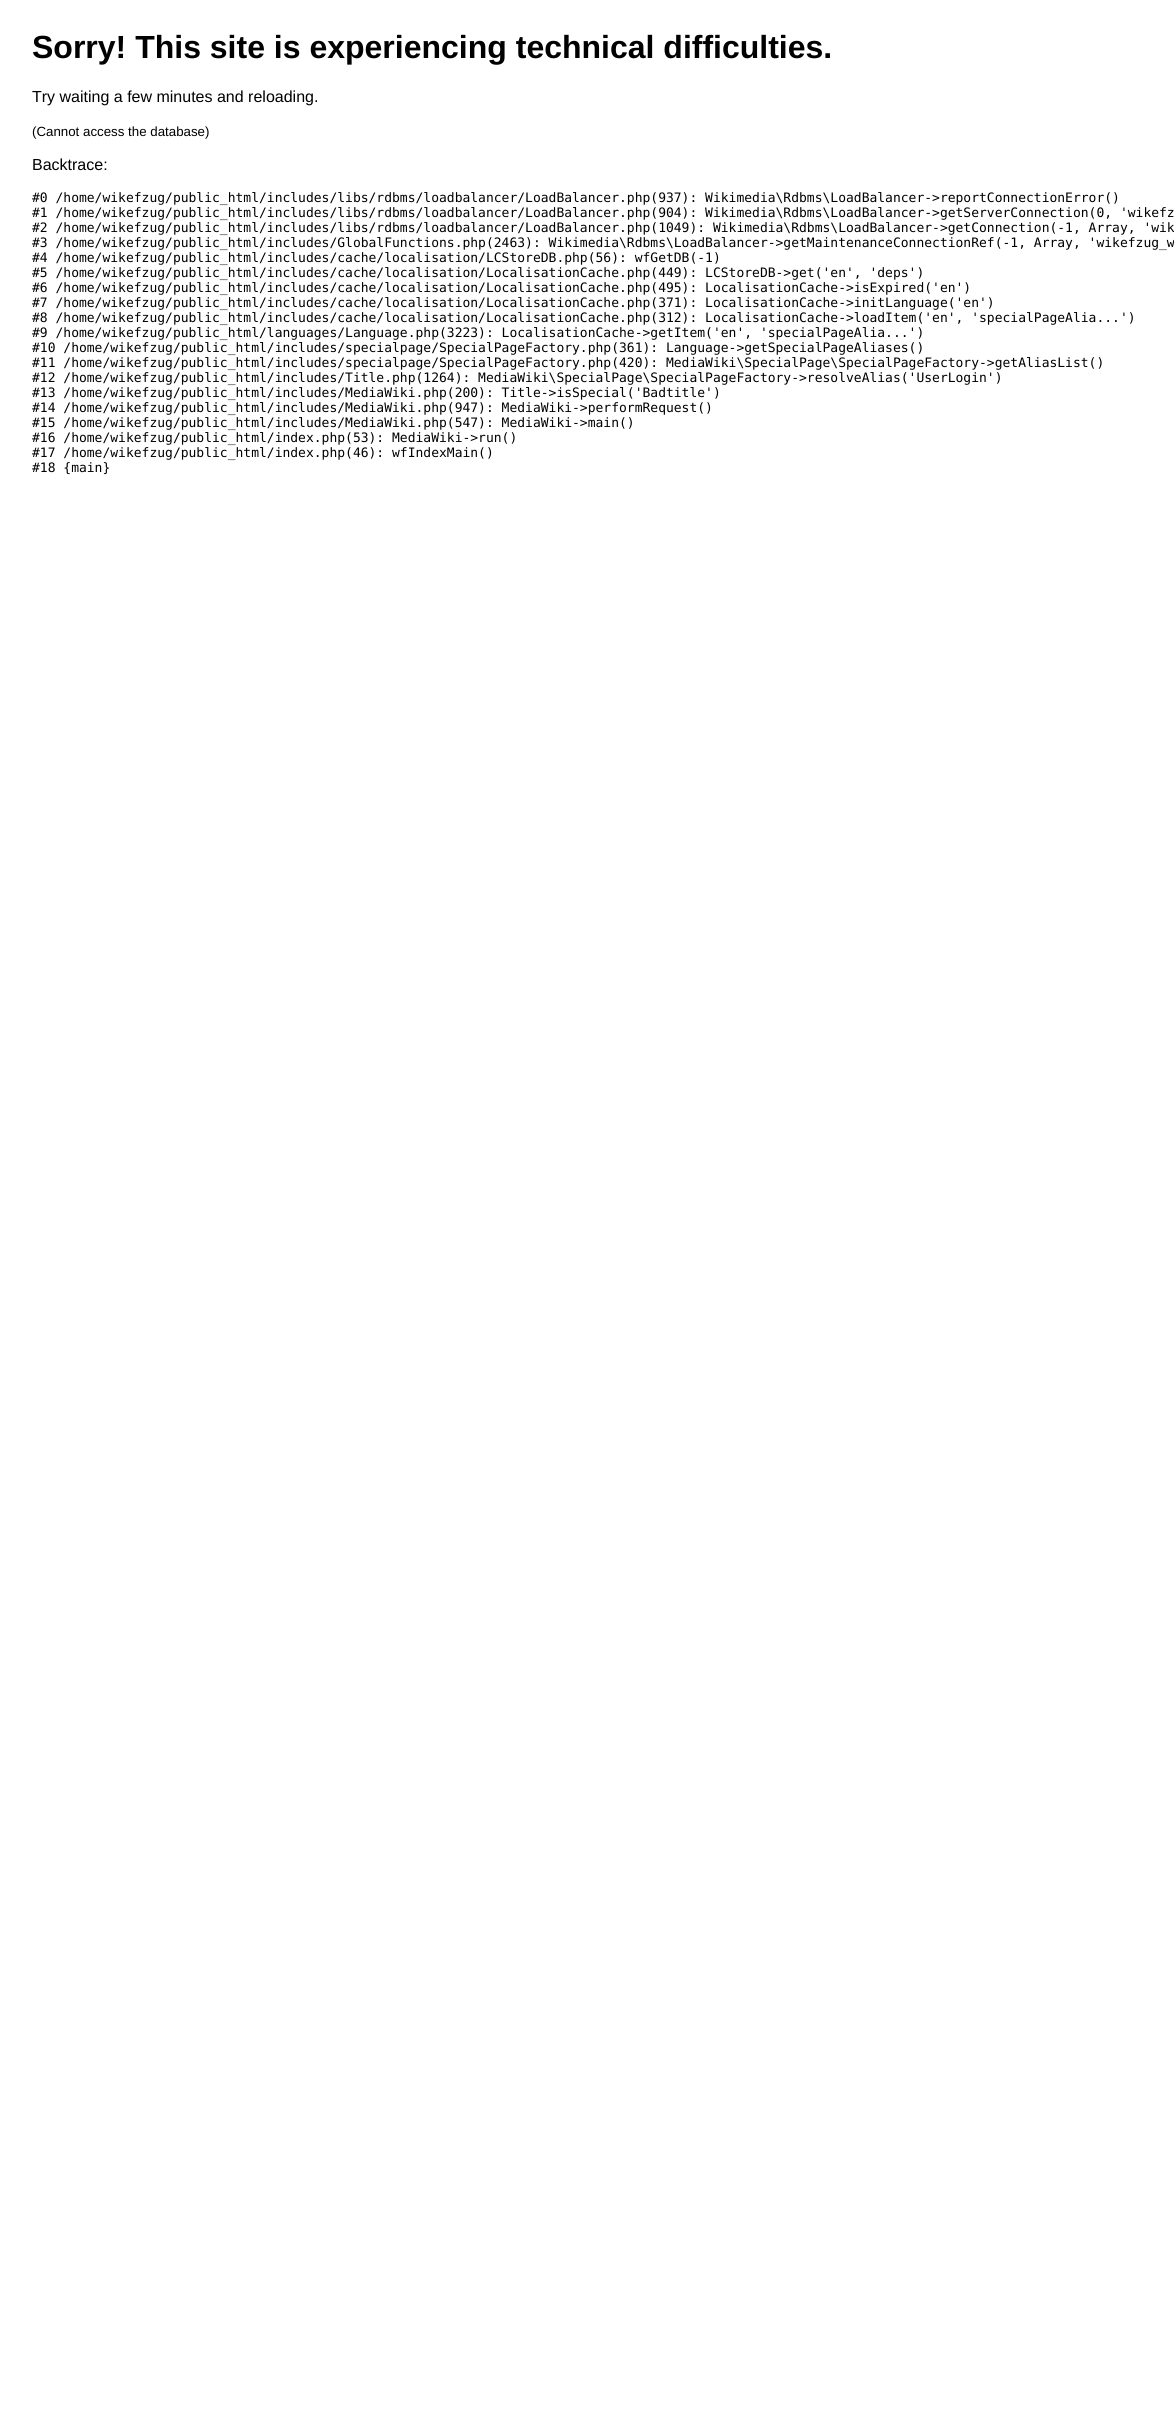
import math
import cairocffi as cairo

surface = cairo.ImageSurface(cairo.FORMAT_RGB24, 1174, 2411)
cr = cairo.Context(surface)
options = cairo.FontOptions()
options.set_hint_metrics(cairo.HINT_METRICS_OFF)
options.set_hint_style(cairo.HINT_STYLE_NONE)
cr.set_font_options(options)
cr.set_miter_limit(4)


def use_color(code):
    cr.set_source_rgb(*(v / 255 for v in bytes.fromhex(code[-6:])))


use_color("#ffffff")
cr.paint()
cr.select_font_face("Liberation Sans", cairo.FONT_SLANT_NORMAL, cairo.FONT_WEIGHT_BOLD)
cr.set_font_size(32)
use_color("#000000")
cr.move_to(32, 58)
cr.show_text("Sorry! This site is experiencing technical difficulties.")
cr.select_font_face("Liberation Sans")
cr.set_font_size(16)
cr.move_to(32, 102)
cr.show_text("Try waiting a few minutes and reloading.")
cr.set_font_size(13.3)
cr.move_to(32, 136)
cr.show_text("(Cannot access the database)")
cr.set_font_size(16)
cr.move_to(32, 170)
cr.show_text("Backtrace:")
cr.select_font_face("DejaVu Sans Mono")
cr.set_font_size(13)
cr.move_to(32, 202)
cr.show_text("#0 /home/wikefzug/public_html/includes/libs/rdbms/loadbalancer/LoadBalancer.php(937): Wikimedia\\Rdbms\\LoadBalancer->reportConnectionError()")
cr.move_to(32, 217)
cr.show_text("#1 /home/wikefzug/public_html/includes/libs/rdbms/loadbalancer/LoadBalancer.php(904): Wikimedia\\Rdbms\\LoadBalancer->getServerConnection(0, 'wikefz")
cr.move_to(32, 232)
cr.show_text("#2 /home/wikefzug/public_html/includes/libs/rdbms/loadbalancer/LoadBalancer.php(1049): Wikimedia\\Rdbms\\LoadBalancer->getConnection(-1, Array, 'wik")
cr.move_to(32, 247)
cr.show_text("#3 /home/wikefzug/public_html/includes/GlobalFunctions.php(2463): Wikimedia\\Rdbms\\LoadBalancer->getMaintenanceConnectionRef(-1, Array, 'wikefzug_w")
cr.move_to(32, 262)
cr.show_text("#4 /home/wikefzug/public_html/includes/cache/localisation/LCStoreDB.php(56): wfGetDB(-1)")
cr.move_to(32, 277)
cr.show_text("#5 /home/wikefzug/public_html/includes/cache/localisation/LocalisationCache.php(449): LCStoreDB->get('en', 'deps')")
cr.move_to(32, 292)
cr.show_text("#6 /home/wikefzug/public_html/includes/cache/localisation/LocalisationCache.php(495): LocalisationCache->isExpired('en')")
cr.move_to(32, 307)
cr.show_text("#7 /home/wikefzug/public_html/includes/cache/localisation/LocalisationCache.php(371): LocalisationCache->initLanguage('en')")
cr.move_to(32, 322)
cr.show_text("#8 /home/wikefzug/public_html/includes/cache/localisation/LocalisationCache.php(312): LocalisationCache->loadItem('en', 'specialPageAlia...')")
cr.move_to(32, 337)
cr.show_text("#9 /home/wikefzug/public_html/languages/Language.php(3223): LocalisationCache->getItem('en', 'specialPageAlia...')")
cr.move_to(32, 352)
cr.show_text("#10 /home/wikefzug/public_html/includes/specialpage/SpecialPageFactory.php(361): Language->getSpecialPageAliases()")
cr.move_to(32, 367)
cr.show_text("#11 /home/wikefzug/public_html/includes/specialpage/SpecialPageFactory.php(420): MediaWiki\\SpecialPage\\SpecialPageFactory->getAliasList()")
cr.move_to(32, 382)
cr.show_text("#12 /home/wikefzug/public_html/includes/Title.php(1264): MediaWiki\\SpecialPage\\SpecialPageFactory->resolveAlias('UserLogin')")
cr.move_to(32, 397)
cr.show_text("#13 /home/wikefzug/public_html/includes/MediaWiki.php(200): Title->isSpecial('Badtitle')")
cr.move_to(32, 412)
cr.show_text("#14 /home/wikefzug/public_html/includes/MediaWiki.php(947): MediaWiki->performRequest()")
cr.move_to(32, 427)
cr.show_text("#15 /home/wikefzug/public_html/includes/MediaWiki.php(547): MediaWiki->main()")
cr.move_to(32, 442)
cr.show_text("#16 /home/wikefzug/public_html/index.php(53): MediaWiki->run()")
cr.move_to(32, 457)
cr.show_text("#17 /home/wikefzug/public_html/index.php(46): wfIndexMain()")
cr.move_to(32, 472)
cr.show_text("#18 {main}")
surface.write_to_png("result.png")
